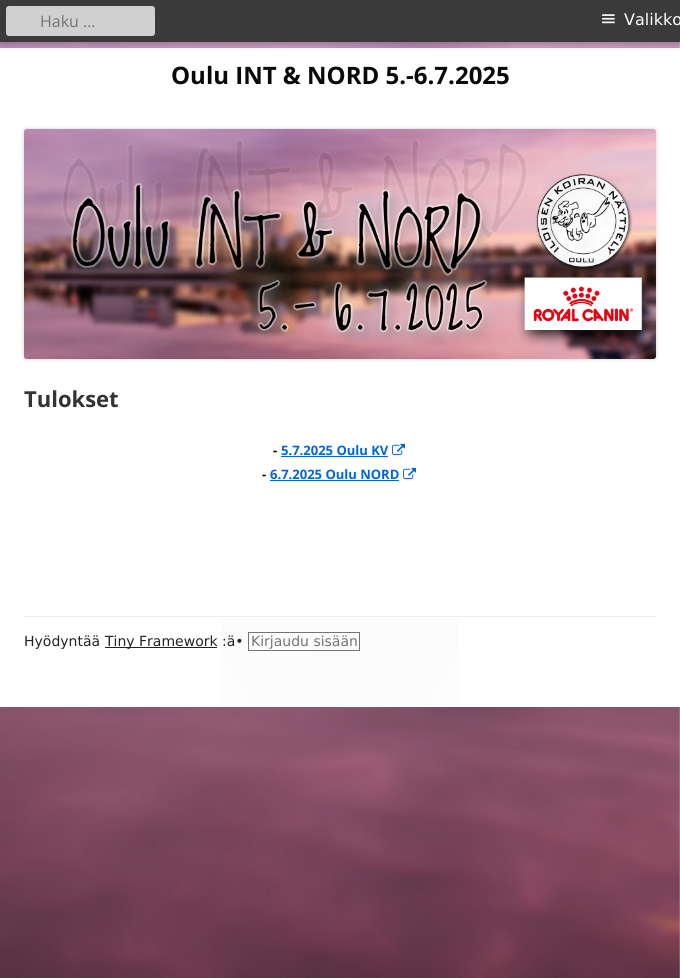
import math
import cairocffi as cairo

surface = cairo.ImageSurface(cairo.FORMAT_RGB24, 680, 978)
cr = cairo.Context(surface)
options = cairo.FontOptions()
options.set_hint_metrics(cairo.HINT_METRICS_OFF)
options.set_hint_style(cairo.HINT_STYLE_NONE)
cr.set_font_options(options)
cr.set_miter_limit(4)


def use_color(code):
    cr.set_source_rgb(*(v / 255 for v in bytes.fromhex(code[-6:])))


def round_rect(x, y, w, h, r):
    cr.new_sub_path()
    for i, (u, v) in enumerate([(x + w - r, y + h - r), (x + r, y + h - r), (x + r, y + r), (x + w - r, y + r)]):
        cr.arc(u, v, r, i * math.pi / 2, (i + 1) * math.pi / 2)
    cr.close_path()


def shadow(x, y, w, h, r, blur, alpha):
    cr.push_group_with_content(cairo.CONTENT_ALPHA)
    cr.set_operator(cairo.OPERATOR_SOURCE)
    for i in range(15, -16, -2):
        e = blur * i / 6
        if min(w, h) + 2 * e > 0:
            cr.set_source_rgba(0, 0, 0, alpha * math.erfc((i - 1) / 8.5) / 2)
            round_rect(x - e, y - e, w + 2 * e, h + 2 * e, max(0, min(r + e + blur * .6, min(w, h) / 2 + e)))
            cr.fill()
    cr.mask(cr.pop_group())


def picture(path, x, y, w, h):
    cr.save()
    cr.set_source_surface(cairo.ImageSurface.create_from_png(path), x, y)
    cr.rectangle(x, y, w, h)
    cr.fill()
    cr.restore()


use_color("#ffffff")
cr.paint()
picture("img1.png", 0, 42, 680, 936)
use_color("#ffffff")
cr.rectangle(0, 48, 680, 659)
cr.fill()
use_color("#000000")
shadow(0, 0, 680, 42, 0, 5, 0.4)
use_color("#3a3a3a")
cr.rectangle(0, 0, 680, 42)
cr.fill()
use_color("#d0d0d0")
round_rect(6, 6, 149, 30, 3)
cr.fill()
cr.select_font_face("Open Sans")
cr.set_font_size(16)
use_color("#747474")
cr.move_to(40, 27)
cr.show_text("Haku …")
cr.select_font_face("DejaVu Sans")
cr.set_font_size(20)
use_color("#ffffff")
cr.move_to(600, 25)
cr.show_text("≡")
cr.set_font_size(16)
cr.move_to(624, 25)
cr.show_text("Valikko")
cr.select_font_face("Open Sans", cairo.FONT_SLANT_NORMAL, cairo.FONT_WEIGHT_BOLD)
cr.set_font_size(24)
use_color("#0a0a0a")
cr.move_to(171, 84)
cr.show_text("Oulu INT & NORD 5.-6.7.2025")
use_color("#000000")
shadow(24, 129, 632, 230, 3, 2, 0.2)
picture("img2.png", 24, 129, 632, 230)
cr.set_font_size(22)
use_color("#333333")
cr.move_to(24, 407)
cr.show_text("Tulokset")
cr.set_font_size(13)
use_color("#000000")
cr.move_to(273, 455)
cr.show_text("-")
use_color("#0066df")
cr.move_to(281, 455)
cr.show_text("5.7.2025 Oulu KV")
cr.rectangle(281, 456, 107, 1)
cr.fill()
picture("img3.png", 392, 443, 13, 12)
use_color("#000000")
cr.move_to(262, 479)
cr.show_text("-")
use_color("#0066df")
cr.move_to(270, 479)
cr.show_text("6.7.2025 Oulu NORD")
cr.rectangle(270, 480, 129, 1)
cr.fill()
picture("img3.png", 403, 467, 13, 12)
gradient = cairo.RadialGradient(340, 617, 0, 340, 617, 316)
gradient.add_color_stop_rgba(0, 0.984, 0.984, 0.984, 1)
gradient.add_color_stop_rgba(1, 1, 1, 1, 1)
cr.set_source(gradient)
cr.rectangle(221, 617, 238, 90)
cr.fill()
use_color("#ededed")
cr.rectangle(24, 616, 632, 1)
cr.fill()
cr.select_font_face("DejaVu Sans")
cr.set_font_size(14)
use_color("#222222")
cr.move_to(24, 646)
cr.show_text("Hyödyntää")
cr.rectangle(105, 647, 112, 1)
cr.fill()
cr.move_to(105, 646)
cr.show_text("Tiny Framework :ä•")
cr.rectangle(248.5, 632.5, 111, 18)
use_color("#747474")
cr.set_line_width(1)
cr.stroke()
cr.move_to(251, 646)
cr.show_text("Kirjaudu sisään")
surface.write_to_png("result.png")
